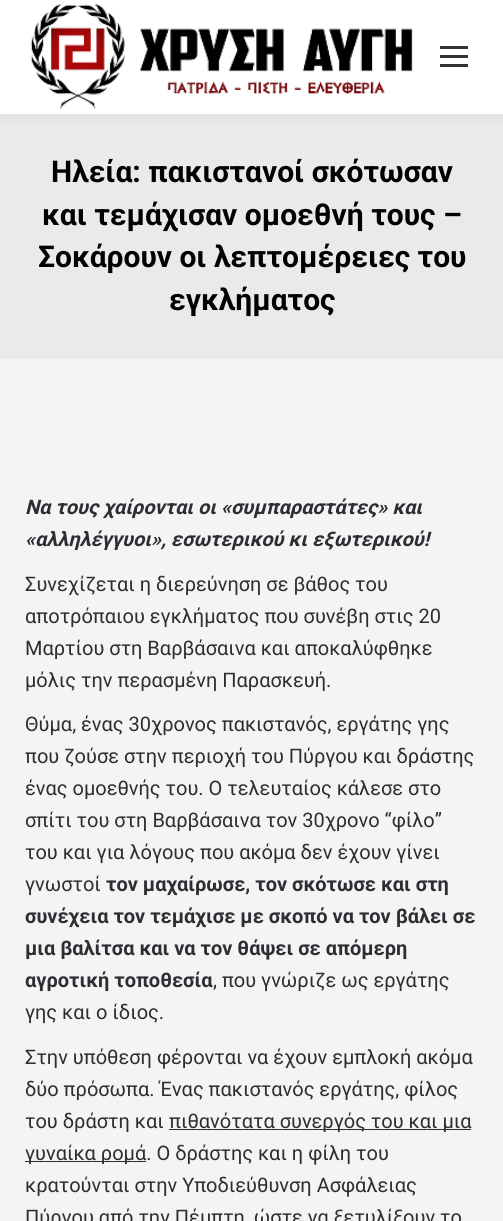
import math
import cairocffi as cairo

surface = cairo.ImageSurface(cairo.FORMAT_RGB24, 503, 1221)
cr = cairo.Context(surface)
options = cairo.FontOptions()
options.set_hint_metrics(cairo.HINT_METRICS_OFF)
options.set_hint_style(cairo.HINT_STYLE_NONE)
cr.set_font_options(options)
cr.set_miter_limit(4)


def use_color(code):
    cr.set_source_rgb(*(v / 255 for v in bytes.fromhex(code[-6:])))


def round_rect(x, y, w, h, r):
    cr.new_sub_path()
    for i, (u, v) in enumerate([(x + w - r, y + h - r), (x + r, y + h - r), (x + r, y + r), (x + w - r, y + r)]):
        cr.arc(u, v, r, i * math.pi / 2, (i + 1) * math.pi / 2)
    cr.close_path()


def shadow(x, y, w, h, r, blur, alpha):
    cr.push_group_with_content(cairo.CONTENT_ALPHA)
    cr.set_operator(cairo.OPERATOR_SOURCE)
    for i in range(15, -16, -2):
        e = blur * i / 6
        if min(w, h) + 2 * e > 0:
            cr.set_source_rgba(0, 0, 0, alpha * math.erfc((i - 1) / 8.5) / 2)
            round_rect(x - e, y - e, w + 2 * e, h + 2 * e, max(0, min(r + e + blur * .6, min(w, h) / 2 + e)))
            cr.fill()
    cr.mask(cr.pop_group())


def picture(path, x, y, w, h):
    cr.save()
    cr.set_source_surface(cairo.ImageSurface.create_from_png(path), x, y)
    cr.rectangle(x, y, w, h)
    cr.fill()
    cr.restore()


use_color("#f4f4f4")
cr.paint()
use_color("#eaeaea")
cr.rectangle(0, 114, 503, 245)
cr.fill()
use_color("#000000")
shadow(-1, -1, 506, 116, 0, 9.5, 0.07)
use_color("#ffffff")
cr.rectangle(0, 0, 503, 114)
cr.fill()
picture("img1.png", 30, 4, 383, 106)
use_color("#333333")
cr.rectangle(440, 46, 28, 3)
cr.fill()
cr.rectangle(440, 55, 28, 3)
cr.fill()
cr.rectangle(440, 64, 28, 3)
cr.fill()
cr.select_font_face("Roboto", cairo.FONT_SLANT_NORMAL, cairo.FONT_WEIGHT_BOLD)
cr.set_font_size(30)
use_color("#020202")
cr.move_to(51, 182)
cr.show_text("Ηλεία: πακιστανοί σκότωσαν")
cr.move_to(42, 225)
cr.show_text("και τεμάχισαν ομοεθνή τους –")
cr.move_to(38, 267)
cr.show_text("Σοκάρουν οι λεπτομέρειες του")
cr.move_to(169, 310)
cr.show_text("εγκλήματος")
cr.select_font_face("Roboto", cairo.FONT_SLANT_ITALIC, cairo.FONT_WEIGHT_BOLD)
cr.set_font_size(20)
use_color("#2c2e33")
cr.move_to(25, 514)
cr.show_text("Να τους χαίρονται οι «συμπαραστάτες» και")
cr.move_to(25, 546)
cr.show_text("«αλληλέγγυοι», εσωτερικού κι εξωτερικού!")
cr.select_font_face("Roboto")
cr.move_to(25, 591)
cr.show_text("Συνεχίζεται η διερεύνηση σε βάθος του")
cr.move_to(25, 623)
cr.show_text("αποτρόπαιου εγκλήματος που συνέβη στις 20")
cr.move_to(25, 655)
cr.show_text("Μαρτίου στη Βαρβάσαινα και αποκαλύφθηκε")
cr.move_to(25, 687)
cr.show_text("μόλις την περασμένη Παρασκευή.")
cr.move_to(25, 731)
cr.show_text("Θύμα, ένας 30χρονος πακιστανός, εργάτης γης")
cr.move_to(25, 763)
cr.show_text("που ζούσε στην περιοχή του Πύργου και δράστης")
cr.move_to(25, 795)
cr.show_text("ένας ομοεθνής του. Ο τελευταίος κάλεσε στο")
cr.move_to(25, 827)
cr.show_text("σπίτι του στη Βαρβάσαινα τον 30χρονο “φίλο”")
cr.move_to(25, 859)
cr.show_text("του και για λόγους που ακόμα δεν έχουν γίνει")
cr.move_to(25, 891)
cr.show_text("γνωστοί")
cr.select_font_face("Roboto", cairo.FONT_SLANT_NORMAL, cairo.FONT_WEIGHT_BOLD)
cr.move_to(106, 891)
cr.show_text("τον μαχαίρωσε, τον σκότωσε και στη")
cr.move_to(25, 923)
cr.show_text("συνέχεια τον τεμάχισε με σκοπό να τον βάλει σε")
cr.move_to(25, 955)
cr.show_text("μια βαλίτσα και να τον θάψει σε απόμερη")
cr.move_to(25, 987)
cr.show_text("αγροτική τοποθεσία")
cr.select_font_face("Roboto")
cr.move_to(213, 987)
cr.show_text(", που γνώριζε ως εργάτης")
cr.move_to(25, 1019)
cr.show_text("γης και ο ίδιος.")
cr.move_to(25, 1064)
cr.show_text("Στην υπόθεση φέρονται να έχουν εμπλοκή ακόμα")
cr.move_to(25, 1096)
cr.show_text("δύο πρόσωπα. Ένας πακιστανός εργάτης, φίλος")
cr.move_to(25, 1128)
cr.show_text("του δράστη και")
cr.rectangle(169, 1129, 302, 1)
cr.fill()
cr.move_to(169, 1128)
cr.show_text("πιθανότατα συνεργός του και μια")
cr.rectangle(25, 1161, 121, 1)
cr.fill()
cr.move_to(25, 1160)
cr.show_text("γυναίκα ρομά. Ο δράστης και η φίλη του")
cr.move_to(25, 1192)
cr.show_text("κρατούνται στην Υποδιεύθυνση Ασφάλειας")
cr.move_to(25, 1224)
cr.show_text("Πύργου από την Πέμπτη, ώστε να ξετυλίξουν το")
surface.write_to_png("result.png")
